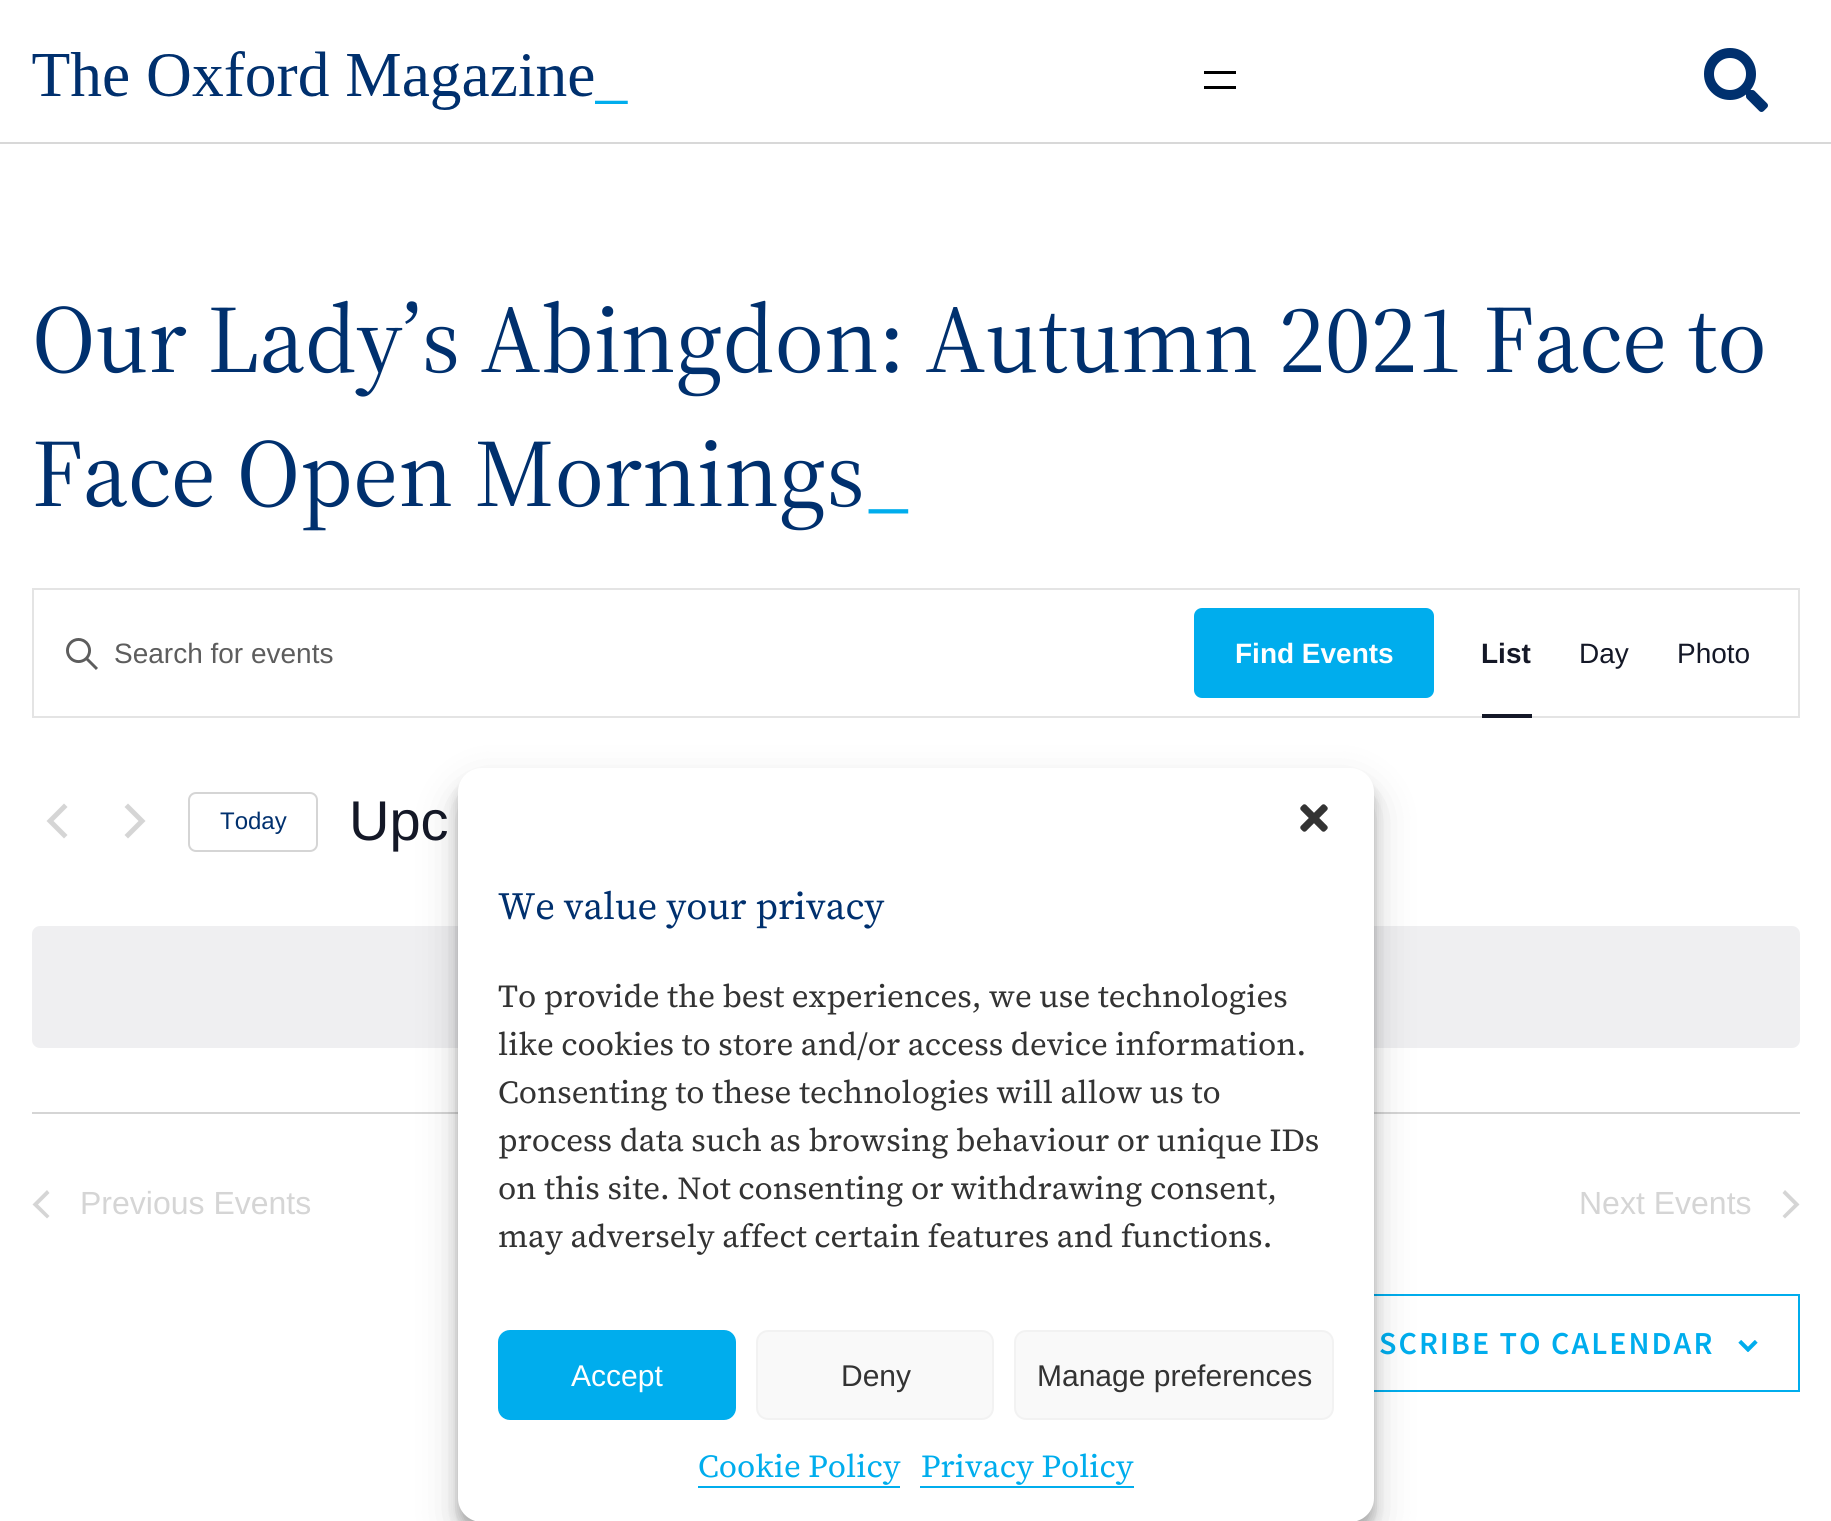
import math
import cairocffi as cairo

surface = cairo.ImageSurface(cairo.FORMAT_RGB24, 1831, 1521)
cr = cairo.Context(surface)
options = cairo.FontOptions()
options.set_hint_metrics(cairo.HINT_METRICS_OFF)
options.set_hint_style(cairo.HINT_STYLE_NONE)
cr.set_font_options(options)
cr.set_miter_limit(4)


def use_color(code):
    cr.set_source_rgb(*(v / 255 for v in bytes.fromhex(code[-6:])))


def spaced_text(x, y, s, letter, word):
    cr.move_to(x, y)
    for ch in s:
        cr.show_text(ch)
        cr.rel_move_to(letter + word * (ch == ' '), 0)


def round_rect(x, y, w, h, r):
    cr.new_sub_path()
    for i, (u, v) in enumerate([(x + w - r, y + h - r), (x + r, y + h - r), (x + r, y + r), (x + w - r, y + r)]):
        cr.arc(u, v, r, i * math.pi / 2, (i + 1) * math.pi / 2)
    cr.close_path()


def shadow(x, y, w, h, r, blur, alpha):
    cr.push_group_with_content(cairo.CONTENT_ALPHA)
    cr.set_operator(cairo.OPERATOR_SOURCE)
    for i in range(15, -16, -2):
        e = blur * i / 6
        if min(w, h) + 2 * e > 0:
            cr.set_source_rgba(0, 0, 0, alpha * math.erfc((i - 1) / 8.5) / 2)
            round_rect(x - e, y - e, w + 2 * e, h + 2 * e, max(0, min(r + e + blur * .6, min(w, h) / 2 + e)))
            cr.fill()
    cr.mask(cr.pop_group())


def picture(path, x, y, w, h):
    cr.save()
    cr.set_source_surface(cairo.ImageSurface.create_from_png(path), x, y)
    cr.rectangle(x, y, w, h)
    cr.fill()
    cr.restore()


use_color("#ffffff")
cr.paint()
use_color("#d8d8d8")
cr.rectangle(0, 142, 1831, 2)
cr.fill()
picture("img1.png", 32, 51, 596, 59)
use_color("#000000")
cr.rectangle(1204, 71, 32, 3)
cr.fill()
cr.rectangle(1204, 86, 32, 3)
cr.fill()
picture("img2.png", 1704, 48, 64, 64)
cr.select_font_face("Source Serif 4")
cr.set_font_size(96)
use_color("#00306e")
cr.move_to(32, 372)
cr.show_text("Our Lady’s Abingdon: Autumn 2021 Face to")
cr.move_to(32, 506)
cr.show_text("Face Open Mornings")
use_color("#00aded")
cr.move_to(865, 506)
cr.show_text("_")
cr.rectangle(33, 589, 1766, 128)
use_color("#e4e4e4")
cr.stroke()
picture("img3.png", 66, 638, 32, 32)
cr.select_font_face("Liberation Sans")
cr.set_font_size(28)
use_color("#5d5d5d")
cr.move_to(114, 663)
cr.show_text("Search for events")
use_color("#00aded")
round_rect(1194, 608, 240, 90, 8)
cr.fill()
cr.select_font_face("Liberation Sans", cairo.FONT_SLANT_NORMAL, cairo.FONT_WEIGHT_BOLD)
use_color("#ffffff")
cr.move_to(1235, 663)
cr.show_text("Find Events")
use_color("#141827")
cr.move_to(1481, 663)
cr.show_text("List")
cr.rectangle(1482, 714, 50, 4)
cr.fill()
cr.select_font_face("Liberation Sans")
cr.move_to(1579, 663)
cr.show_text("Day")
cr.move_to(1677, 663)
cr.show_text("Photo")
use_color("#d5d5d5")
cr.new_path()
cr.move_to(67.5, 835)
cr.line_to(64, 838.5)
cr.line_to(46.5, 821)
cr.line_to(64, 803.5)
cr.line_to(67.5, 807)
cr.line_to(53.5, 821)
cr.close_path()
cr.fill()
cr.new_path()
cr.move_to(124.5, 807)
cr.line_to(128, 803.5)
cr.line_to(145.5, 821)
cr.line_to(128, 838.5)
cr.line_to(124.5, 835)
cr.line_to(138.5, 821)
cr.close_path()
cr.fill()
round_rect(189, 793, 128, 58, 7)
cr.stroke()
cr.set_font_size(24)
use_color("#00306e")
cr.move_to(220, 829)
cr.show_text("Today")
cr.set_font_size(56)
use_color("#141827")
cr.move_to(349, 840)
cr.show_text("Upc")
use_color("#efeff1")
round_rect(32, 926, 1768, 122, 8)
cr.fill()
use_color("#d5d5d5")
cr.rectangle(32, 1112, 1768, 2)
cr.fill()
cr.new_path()
cr.move_to(49.5, 1216)
cr.line_to(47, 1218.5)
cr.line_to(32.5, 1204.5)
cr.line_to(47, 1190)
cr.line_to(49.5, 1193)
cr.line_to(38, 1204.5)
cr.close_path()
cr.fill()
cr.set_font_size(32)
cr.move_to(80, 1214)
cr.show_text("Previous Events")
cr.move_to(1579, 1214)
cr.show_text("Next Events")
cr.new_path()
cr.move_to(1782.5, 1193)
cr.line_to(1785, 1190)
cr.line_to(1799.5, 1204.5)
cr.line_to(1785, 1218.5)
cr.line_to(1782.5, 1216)
cr.line_to(1794, 1204.5)
cr.close_path()
cr.fill()
cr.rectangle(1275, 1295, 524, 96)
use_color("#00aded")
cr.stroke()
cr.select_font_face("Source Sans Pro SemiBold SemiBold")
spaced_text(1379, 1354, "SCRIBE TO CALENDAR", 2, 0)
picture("img4.png", 1738, 1340, 20, 12)
use_color("#000000")
shadow(458, 780, 916, 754, 24, 6, 0.23)
shadow(458, 788, 916, 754, 24, 20, 0.19)
use_color("#ffffff")
round_rect(458, 768, 916, 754, 24)
cr.fill()
picture("img5.png", 1300, 804, 28, 28)
cr.select_font_face("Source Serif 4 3")
cr.set_font_size(38.4)
use_color("#00306e")
cr.move_to(498, 919)
cr.show_text("We value your privacy")
cr.select_font_face("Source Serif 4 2")
cr.set_font_size(32)
use_color("#333333")
cr.move_to(498, 1007)
cr.show_text("To provide the best experiences, we use technologies")
cr.move_to(498, 1055)
cr.show_text("like cookies to store and/or access device information.")
cr.move_to(498, 1103)
cr.show_text("Consenting to these technologies will allow us to")
cr.move_to(498, 1151)
cr.show_text("process data such as browsing behaviour or unique IDs")
cr.move_to(498, 1199)
cr.show_text("on this site. Not consenting or withdrawing consent,")
cr.move_to(498, 1247)
cr.show_text("may adversely affect certain features and functions.")
use_color("#00aded")
round_rect(499, 1331, 236, 88, 11)
cr.fill_preserve()
cr.stroke()
cr.select_font_face("Liberation Sans")
cr.set_font_size(30)
use_color("#ffffff")
cr.move_to(571, 1386)
cr.show_text("Accept")
use_color("#f9f9f9")
round_rect(757, 1331, 236, 88, 11)
cr.fill_preserve()
use_color("#f2f2f2")
cr.stroke()
use_color("#333333")
cr.move_to(841, 1386)
cr.show_text("Deny")
use_color("#f9f9f9")
round_rect(1015, 1331, 318, 88, 11)
cr.fill_preserve()
use_color("#f2f2f2")
cr.stroke()
use_color("#333333")
cr.move_to(1037, 1386)
cr.show_text("Manage preferences")
cr.select_font_face("Source Serif 4 2")
cr.set_font_size(32)
use_color("#00aded")
cr.move_to(698, 1477)
cr.show_text("Cookie Policy")
cr.rectangle(698, 1486, 202, 2)
cr.fill()
cr.move_to(921, 1477)
cr.show_text("Privacy Policy")
cr.rectangle(920, 1486, 214, 2)
cr.fill()
surface.write_to_png("result.png")
